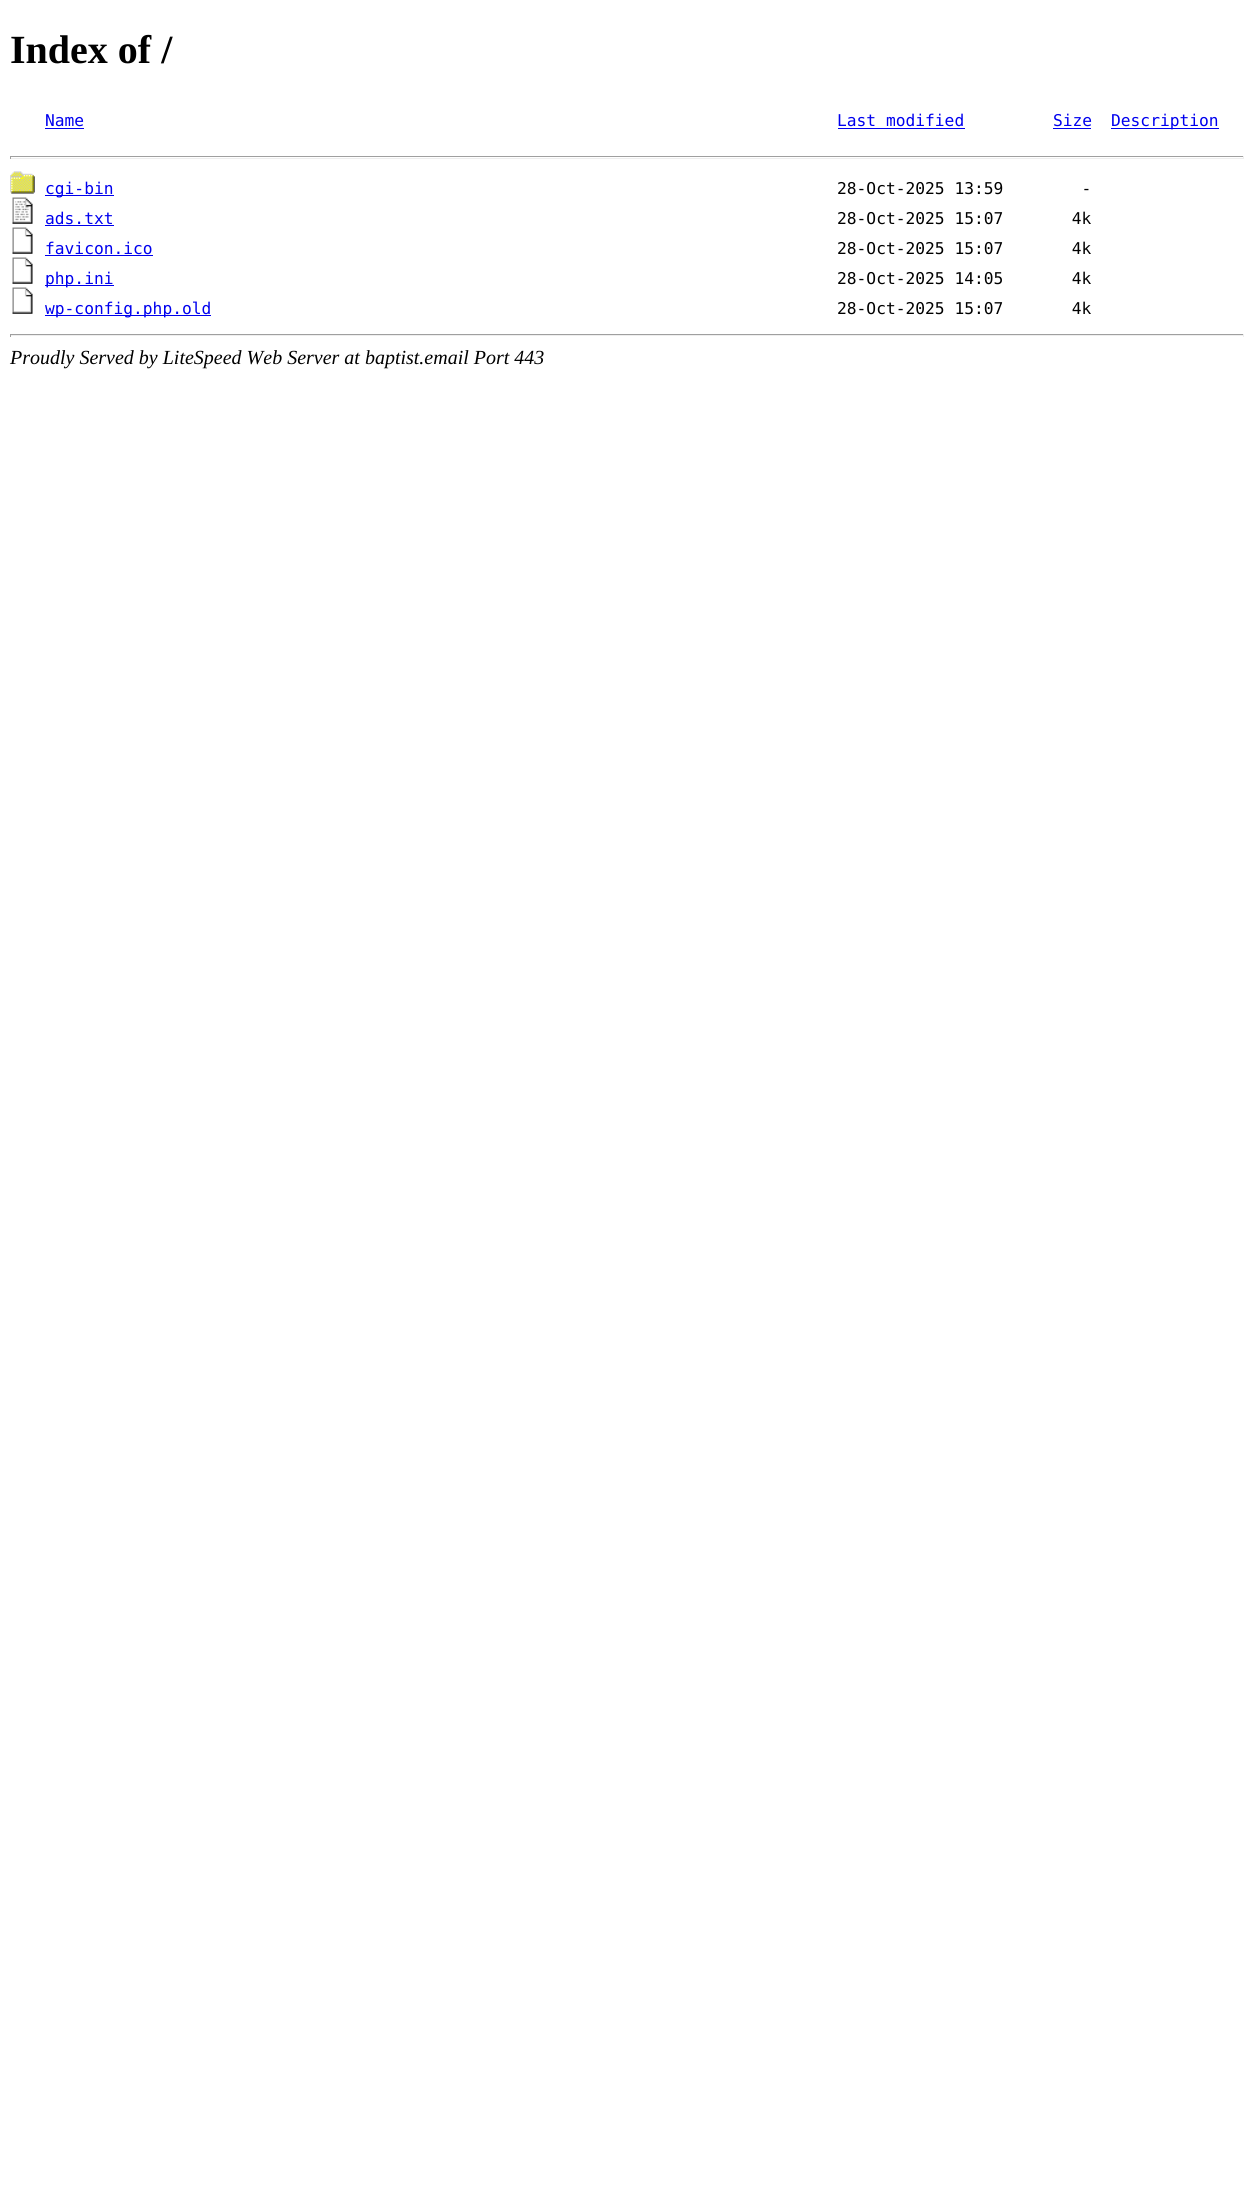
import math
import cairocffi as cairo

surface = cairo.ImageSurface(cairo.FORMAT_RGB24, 1253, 2203)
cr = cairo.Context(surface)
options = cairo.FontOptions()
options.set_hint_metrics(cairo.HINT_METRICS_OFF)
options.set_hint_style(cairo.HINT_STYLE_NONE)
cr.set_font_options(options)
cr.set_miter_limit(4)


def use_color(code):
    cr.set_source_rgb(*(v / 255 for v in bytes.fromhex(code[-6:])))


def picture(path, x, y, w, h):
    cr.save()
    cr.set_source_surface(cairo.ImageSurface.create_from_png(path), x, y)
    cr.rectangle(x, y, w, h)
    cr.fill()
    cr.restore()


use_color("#ffffff")
cr.paint()
cr.select_font_face("Liberation Serif", cairo.FONT_SLANT_NORMAL, cairo.FONT_WEIGHT_BOLD)
cr.set_font_size(40)
use_color("#000000")
cr.move_to(10, 63)
cr.show_text("Index of /")
cr.select_font_face("DejaVu Sans Mono")
cr.set_font_size(16.25)
use_color("#0000ee")
cr.move_to(45, 126)
cr.show_text("Name")
cr.rectangle(45, 128, 39, 1)
cr.fill()
cr.move_to(837, 126)
cr.show_text("Last modified")
cr.rectangle(838, 128, 127, 1)
cr.fill()
cr.move_to(1053, 126)
cr.show_text("Size")
cr.rectangle(1053, 128, 38, 1)
cr.fill()
cr.rectangle(1111, 128, 108, 1)
cr.fill()
cr.move_to(1111, 126)
cr.show_text("Description")
use_color("#9f9f9f")
cr.rectangle(10, 156, 1234, 1)
cr.fill()
use_color("#eeeeee")
cr.rectangle(1243, 156, 1, 3)
cr.fill()
cr.rectangle(10, 158, 1234, 1)
cr.fill()
use_color("#9f9f9f")
cr.rectangle(10, 156, 1, 3)
cr.fill()
picture("img1.png", 10, 171, 25, 23)
use_color("#0000ee")
cr.rectangle(45, 195, 69, 1)
cr.fill()
cr.move_to(45, 194)
cr.show_text("cgi-bin")
use_color("#000000")
cr.move_to(837, 194)
cr.show_text("28-Oct-2025 13:59        -")
picture("img2.png", 12, 197, 21, 27)
use_color("#0000ee")
cr.move_to(45, 224)
cr.show_text("ads.txt")
cr.rectangle(45, 225, 69, 1)
cr.fill()
use_color("#000000")
cr.move_to(837, 224)
cr.show_text("28-Oct-2025 15:07       4k")
picture("img3.png", 12, 227, 21, 27)
use_color("#0000ee")
cr.move_to(45, 254)
cr.show_text("favicon.ico")
cr.rectangle(45, 255, 108, 1)
cr.fill()
use_color("#000000")
cr.move_to(837, 254)
cr.show_text("28-Oct-2025 15:07       4k")
picture("img3.png", 12, 257, 21, 27)
use_color("#0000ee")
cr.rectangle(45, 285, 69, 1)
cr.fill()
cr.move_to(45, 284)
cr.show_text("php.ini")
use_color("#000000")
cr.move_to(837, 284)
cr.show_text("28-Oct-2025 14:05       4k")
picture("img4.png", 12, 287, 21, 27)
use_color("#0000ee")
cr.rectangle(45, 315, 166, 1)
cr.fill()
cr.move_to(45, 314)
cr.show_text("wp-config.php.old")
use_color("#000000")
cr.move_to(837, 314)
cr.show_text("28-Oct-2025 15:07       4k")
use_color("#9f9f9f")
cr.rectangle(10, 334, 1234, 1)
cr.fill()
use_color("#eeeeee")
cr.rectangle(1243, 334, 1, 3)
cr.fill()
cr.rectangle(10, 335, 1234, 1)
cr.fill()
use_color("#9f9f9f")
cr.rectangle(10, 334, 1, 3)
cr.fill()
cr.select_font_face("Liberation Serif", cairo.FONT_SLANT_ITALIC)
cr.set_font_size(20)
use_color("#000000")
cr.move_to(10, 364)
cr.show_text("Proudly Served by LiteSpeed Web Server at baptist.email Port 443")
surface.write_to_png("result.png")
